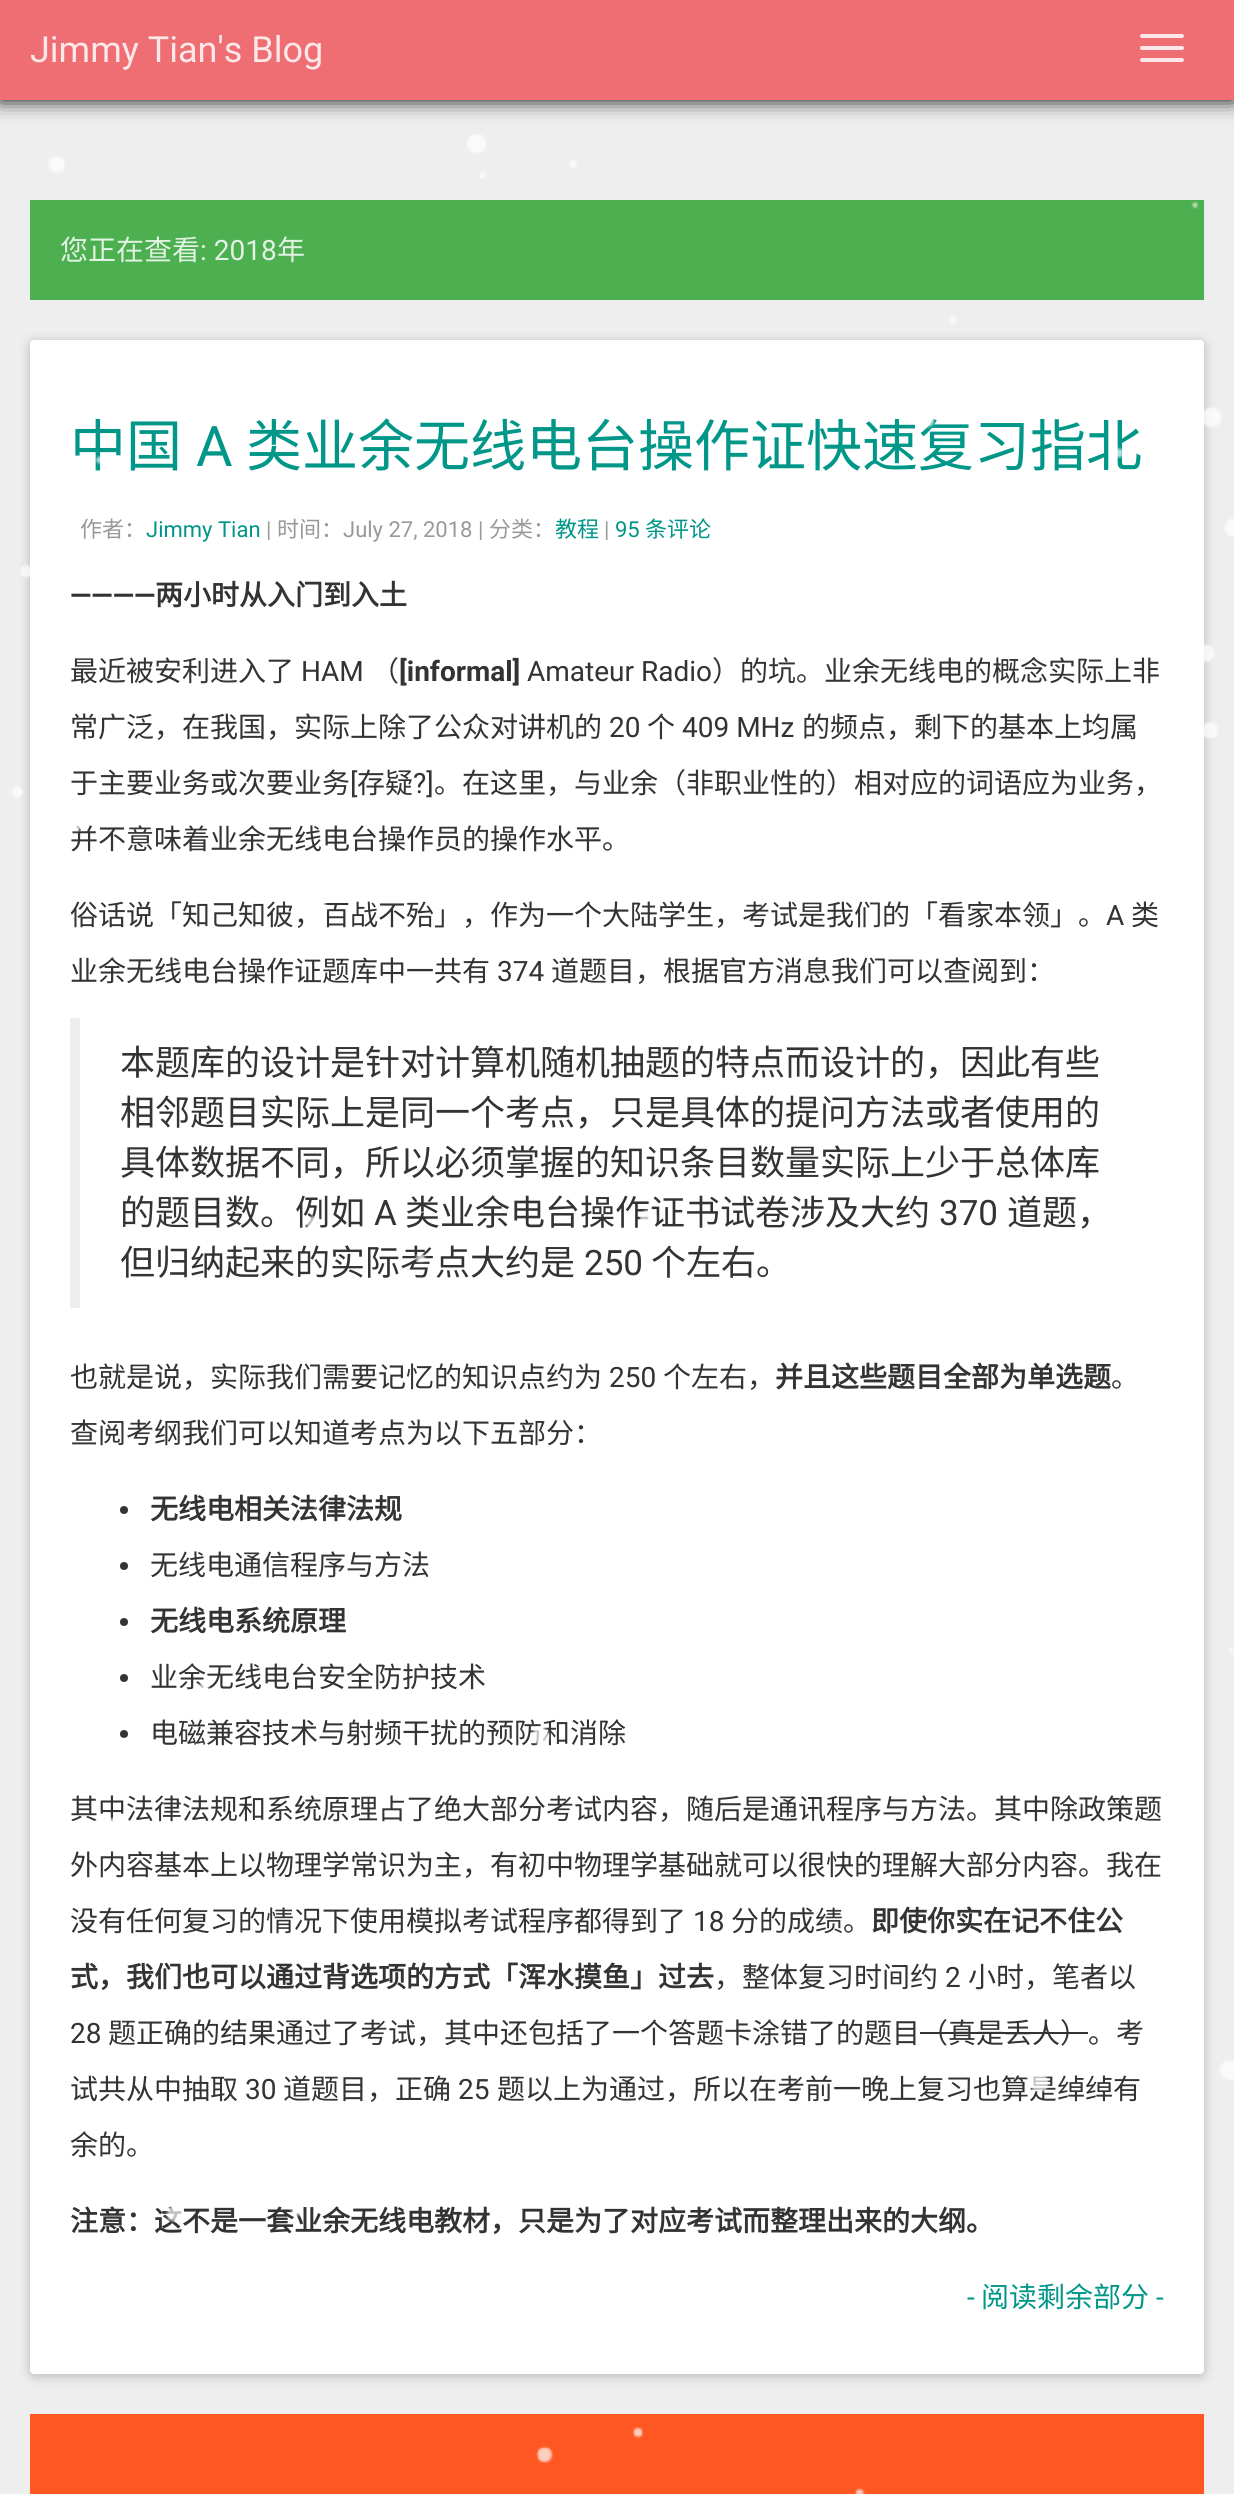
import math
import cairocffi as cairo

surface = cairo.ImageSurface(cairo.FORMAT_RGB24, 1234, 2494)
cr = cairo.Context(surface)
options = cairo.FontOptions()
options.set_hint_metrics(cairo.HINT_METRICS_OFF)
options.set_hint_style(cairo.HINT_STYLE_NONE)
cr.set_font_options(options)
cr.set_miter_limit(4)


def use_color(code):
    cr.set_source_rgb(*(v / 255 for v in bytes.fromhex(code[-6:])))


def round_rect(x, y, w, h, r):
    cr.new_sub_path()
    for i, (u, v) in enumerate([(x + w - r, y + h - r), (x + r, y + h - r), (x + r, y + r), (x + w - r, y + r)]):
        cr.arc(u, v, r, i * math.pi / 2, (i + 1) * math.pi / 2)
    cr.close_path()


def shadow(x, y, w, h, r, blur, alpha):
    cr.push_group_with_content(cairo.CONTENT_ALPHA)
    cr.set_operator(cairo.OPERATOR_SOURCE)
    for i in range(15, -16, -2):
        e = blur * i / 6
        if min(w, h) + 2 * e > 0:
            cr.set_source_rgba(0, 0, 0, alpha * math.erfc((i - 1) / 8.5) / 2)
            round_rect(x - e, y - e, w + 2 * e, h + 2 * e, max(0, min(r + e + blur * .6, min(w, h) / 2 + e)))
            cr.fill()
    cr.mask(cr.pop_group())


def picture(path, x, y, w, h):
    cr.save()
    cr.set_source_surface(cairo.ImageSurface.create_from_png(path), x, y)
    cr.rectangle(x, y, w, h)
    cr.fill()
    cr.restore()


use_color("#eeeeee")
cr.paint()
use_color("#000000")
shadow(0, 0, 1234, 100, 0, 10, 1)
use_color("#ee6e73")
cr.rectangle(0, 0, 1234, 100)
cr.fill()
cr.select_font_face("Roboto")
cr.set_font_size(36)
use_color("#fce8e9")
cr.move_to(30, 62)
cr.show_text("Jimmy Tian's Blog")
round_rect(1140, 34, 44, 4, 2)
cr.fill()
round_rect(1140, 46, 44, 4, 2)
cr.fill()
round_rect(1140, 58, 44, 4, 2)
cr.fill()
use_color("#4caf50")
cr.rectangle(30, 200, 1174, 100)
cr.fill()
cr.select_font_face("Noto Sans CJK SC")
cr.set_font_size(28)
use_color("#e2f2e3")
cr.move_to(60, 260)
cr.show_text("您正在查看")
cr.select_font_face("Roboto")
cr.move_to(200, 260)
cr.show_text(": 2018")
cr.select_font_face("Noto Sans CJK SC")
cr.move_to(277, 260)
cr.show_text("年")
use_color("#000000")
shadow(30, 342, 1174, 2034, 4, 6, 0.12)
shadow(30, 342, 1174, 2034, 4, 6, 0.12)
use_color("#ffffff")
round_rect(30, 340, 1174, 2034, 4)
cr.fill()
cr.set_font_size(56)
use_color("#009688")
cr.move_to(70, 466)
cr.show_text("中国")
cr.select_font_face("Roboto")
cr.move_to(196, 466)
cr.show_text("A")
cr.select_font_face("Noto Sans CJK SC")
cr.move_to(246, 466)
cr.show_text("类业余无线电台操作证快速复习指北")
cr.set_font_size(22)
use_color("#999999")
cr.move_to(80, 537)
cr.show_text("作者：")
cr.select_font_face("Roboto")
use_color("#009688")
cr.move_to(146, 537)
cr.show_text("Jimmy Tian")
use_color("#999999")
cr.move_to(266, 537)
cr.show_text("|")
cr.select_font_face("Noto Sans CJK SC")
cr.move_to(277, 537)
cr.show_text("时间：")
cr.select_font_face("Roboto")
cr.move_to(343, 537)
cr.show_text("July 27, 2018 |")
cr.select_font_face("Noto Sans CJK SC")
cr.move_to(489, 537)
cr.show_text("分类：")
use_color("#009688")
cr.move_to(555, 537)
cr.show_text("教程")
cr.select_font_face("Roboto")
use_color("#999999")
cr.move_to(604, 537)
cr.show_text("|")
use_color("#009688")
cr.move_to(615, 537)
cr.show_text("95")
cr.select_font_face("Noto Sans CJK SC")
cr.move_to(645, 537)
cr.show_text("条评论")
cr.select_font_face("Roboto", cairo.FONT_SLANT_NORMAL, cairo.FONT_WEIGHT_BOLD)
cr.set_font_size(28)
use_color("#333333")
cr.move_to(70, 605)
cr.show_text("————")
cr.select_font_face("Noto Sans CJK SC", cairo.FONT_SLANT_NORMAL, cairo.FONT_WEIGHT_BOLD)
cr.move_to(155, 605)
cr.show_text("两小时从入门到入土")
cr.select_font_face("Noto Sans CJK SC")
cr.move_to(70, 681)
cr.show_text("最近被安利进入了")
cr.select_font_face("Roboto")
cr.move_to(301, 681)
cr.show_text("HAM")
cr.select_font_face("Noto Sans CJK SC")
cr.move_to(371, 681)
cr.show_text("（")
cr.select_font_face("Roboto", cairo.FONT_SLANT_NORMAL, cairo.FONT_WEIGHT_BOLD)
cr.move_to(399, 681)
cr.show_text("[informal]")
cr.select_font_face("Roboto")
cr.move_to(527, 681)
cr.show_text("Amateur Radio")
cr.select_font_face("Noto Sans CJK SC")
cr.move_to(712, 681)
cr.show_text("）的坑。业余无线电的概念实际上非")
cr.move_to(70, 737)
cr.show_text("常广泛，在我国，实际上除了公众对讲机的")
cr.select_font_face("Roboto")
cr.move_to(609, 737)
cr.show_text("20")
cr.select_font_face("Noto Sans CJK SC")
cr.move_to(647, 737)
cr.show_text("个")
cr.select_font_face("Roboto")
cr.move_to(682, 737)
cr.show_text("409 MHz")
cr.select_font_face("Noto Sans CJK SC")
cr.move_to(802, 737)
cr.show_text("的频点，剩下的基本上均属")
cr.move_to(70, 793)
cr.show_text("于主要业务或次要业务")
cr.select_font_face("Roboto")
cr.move_to(350, 793)
cr.show_text("[")
cr.select_font_face("Noto Sans CJK SC")
cr.move_to(357, 793)
cr.show_text("存疑")
cr.select_font_face("Roboto")
cr.move_to(413, 793)
cr.show_text("?]")
cr.select_font_face("Noto Sans CJK SC")
cr.move_to(434, 793)
cr.show_text("。在这里，与业余（非职业性的）相对应的词语应为业务，")
cr.move_to(70, 849)
cr.show_text("并不意味着业余无线电台操作员的操作水平。")
cr.move_to(70, 925)
cr.show_text("俗话说「知己知彼，百战不殆」，作为一个大陆学生，考试是我们的「看家本领」。")
cr.select_font_face("Roboto")
cr.move_to(1106, 925)
cr.show_text("A")
cr.select_font_face("Noto Sans CJK SC")
cr.move_to(1131, 925)
cr.show_text("类")
cr.move_to(70, 981)
cr.show_text("业余无线电台操作证题库中一共有")
cr.select_font_face("Roboto")
cr.move_to(497, 981)
cr.show_text("374")
cr.select_font_face("Noto Sans CJK SC")
cr.move_to(551, 981)
cr.show_text("道题目，根据官方消息我们可以查阅到：")
use_color("#eeeeee")
cr.rectangle(70, 1018, 10, 290)
cr.fill()
cr.set_font_size(35)
use_color("#333333")
cr.move_to(120, 1075)
cr.show_text("本题库的设计是针对计算机随机抽题的特点而设计的，因此有些")
cr.move_to(120, 1125)
cr.show_text("相邻题目实际上是同一个考点，只是具体的提问方法或者使用的")
cr.move_to(120, 1175)
cr.show_text("具体数据不同，所以必须掌握的知识条目数量实际上少于总体库")
cr.move_to(120, 1225)
cr.show_text("的题目数。例如")
cr.select_font_face("Roboto")
cr.move_to(374, 1225)
cr.show_text("A")
cr.select_font_face("Noto Sans CJK SC")
cr.move_to(405, 1225)
cr.show_text("类业余电台操作证书试卷涉及大约")
cr.select_font_face("Roboto")
cr.move_to(939, 1225)
cr.show_text("370")
cr.select_font_face("Noto Sans CJK SC")
cr.move_to(1007, 1225)
cr.show_text("道题，")
cr.move_to(120, 1275)
cr.show_text("但归纳起来的实际考点大约是")
cr.select_font_face("Roboto")
cr.move_to(584, 1275)
cr.show_text("250")
cr.select_font_face("Noto Sans CJK SC")
cr.move_to(651, 1275)
cr.show_text("个左右。")
cr.set_font_size(28)
cr.move_to(70, 1387)
cr.show_text("也就是说，实际我们需要记忆的知识点约为")
cr.select_font_face("Roboto")
cr.move_to(609, 1387)
cr.show_text("250")
cr.select_font_face("Noto Sans CJK SC")
cr.move_to(663, 1387)
cr.show_text("个左右，")
cr.select_font_face("Noto Sans CJK SC", cairo.FONT_SLANT_NORMAL, cairo.FONT_WEIGHT_BOLD)
cr.move_to(775, 1387)
cr.show_text("并且这些题目全部为单选题")
cr.select_font_face("Noto Sans CJK SC")
cr.move_to(1111, 1387)
cr.show_text("。")
cr.move_to(70, 1443)
cr.show_text("查阅考纲我们可以知道考点为以下五部分：")
cr.new_path()
cr.arc(124, 1510, 4, 0, 2 * math.pi)
cr.fill()
cr.select_font_face("Noto Sans CJK SC", cairo.FONT_SLANT_NORMAL, cairo.FONT_WEIGHT_BOLD)
cr.move_to(150, 1519)
cr.show_text("无线电相关法律法规")
cr.new_path()
cr.arc(124, 1566, 4, 0, 2 * math.pi)
cr.fill()
cr.select_font_face("Noto Sans CJK SC")
cr.move_to(150, 1575)
cr.show_text("无线电通信程序与方法")
cr.new_path()
cr.arc(124, 1622, 4, 0, 2 * math.pi)
cr.fill()
cr.select_font_face("Noto Sans CJK SC", cairo.FONT_SLANT_NORMAL, cairo.FONT_WEIGHT_BOLD)
cr.move_to(150, 1631)
cr.show_text("无线电系统原理")
cr.new_path()
cr.arc(124, 1678, 4, 0, 2 * math.pi)
cr.fill()
cr.select_font_face("Noto Sans CJK SC")
cr.move_to(150, 1687)
cr.show_text("业余无线电台安全防护技术")
cr.new_path()
cr.arc(124, 1734, 4, 0, 2 * math.pi)
cr.fill()
cr.move_to(150, 1743)
cr.show_text("电磁兼容技术与射频干扰的预防和消除")
cr.move_to(70, 1819)
cr.show_text("其中法律法规和系统原理占了绝大部分考试内容，随后是通讯程序与方法。其中除政策题")
cr.move_to(70, 1875)
cr.show_text("外内容基本上以物理学常识为主，有初中物理学基础就可以很快的理解大部分内容。我在")
cr.move_to(70, 1931)
cr.show_text("没有任何复习的情况下使用模拟考试程序都得到了")
cr.select_font_face("Roboto")
cr.move_to(693, 1931)
cr.show_text("18")
cr.select_font_face("Noto Sans CJK SC")
cr.move_to(731, 1931)
cr.show_text("分的成绩。")
cr.select_font_face("Noto Sans CJK SC", cairo.FONT_SLANT_NORMAL, cairo.FONT_WEIGHT_BOLD)
cr.move_to(871, 1931)
cr.show_text("即使你实在记不住公")
cr.move_to(70, 1987)
cr.show_text("式，我们也可以通过背选项的方式「浑水摸鱼」过去")
cr.select_font_face("Noto Sans CJK SC")
cr.move_to(714, 1987)
cr.show_text("，整体复习时间约")
cr.select_font_face("Roboto")
cr.move_to(945, 1987)
cr.show_text("2")
cr.select_font_face("Noto Sans CJK SC")
cr.move_to(968, 1987)
cr.show_text("小时，笔者以")
cr.select_font_face("Roboto")
cr.move_to(70, 2043)
cr.show_text("28")
cr.select_font_face("Noto Sans CJK SC")
cr.move_to(108, 2043)
cr.show_text("题正确的结果通过了考试，其中还包括了一个答题卡涂错了的题目（真是丢人）。考")
cr.rectangle(920, 2032, 168, 2)
cr.fill()
cr.move_to(70, 2099)
cr.show_text("试共从中抽取")
cr.select_font_face("Roboto")
cr.move_to(245, 2099)
cr.show_text("30")
cr.select_font_face("Noto Sans CJK SC")
cr.move_to(283, 2099)
cr.show_text("道题目，正确")
cr.select_font_face("Roboto")
cr.move_to(458, 2099)
cr.show_text("25")
cr.select_font_face("Noto Sans CJK SC")
cr.move_to(497, 2099)
cr.show_text("题以上为通过，所以在考前一晚上复习也算是绰绰有")
cr.move_to(70, 2155)
cr.show_text("余的。")
cr.select_font_face("Noto Sans CJK SC", cairo.FONT_SLANT_NORMAL, cairo.FONT_WEIGHT_BOLD)
cr.move_to(70, 2231)
cr.show_text("注意：这不是一套业余无线电教材，只是为了对应考试而整理出来的大纲。")
cr.select_font_face("Roboto")
use_color("#009688")
cr.move_to(967, 2307)
cr.show_text("-")
cr.select_font_face("Noto Sans CJK SC")
cr.move_to(981, 2307)
cr.show_text("阅读剩余部分")
cr.select_font_face("Roboto")
cr.move_to(1156, 2307)
cr.show_text("-")
use_color("#ff5722")
cr.rectangle(30, 2414, 1174, 80)
cr.fill()
picture("img1.png", 12, 133, 1222, 2361)
surface.write_to_png("result.png")
